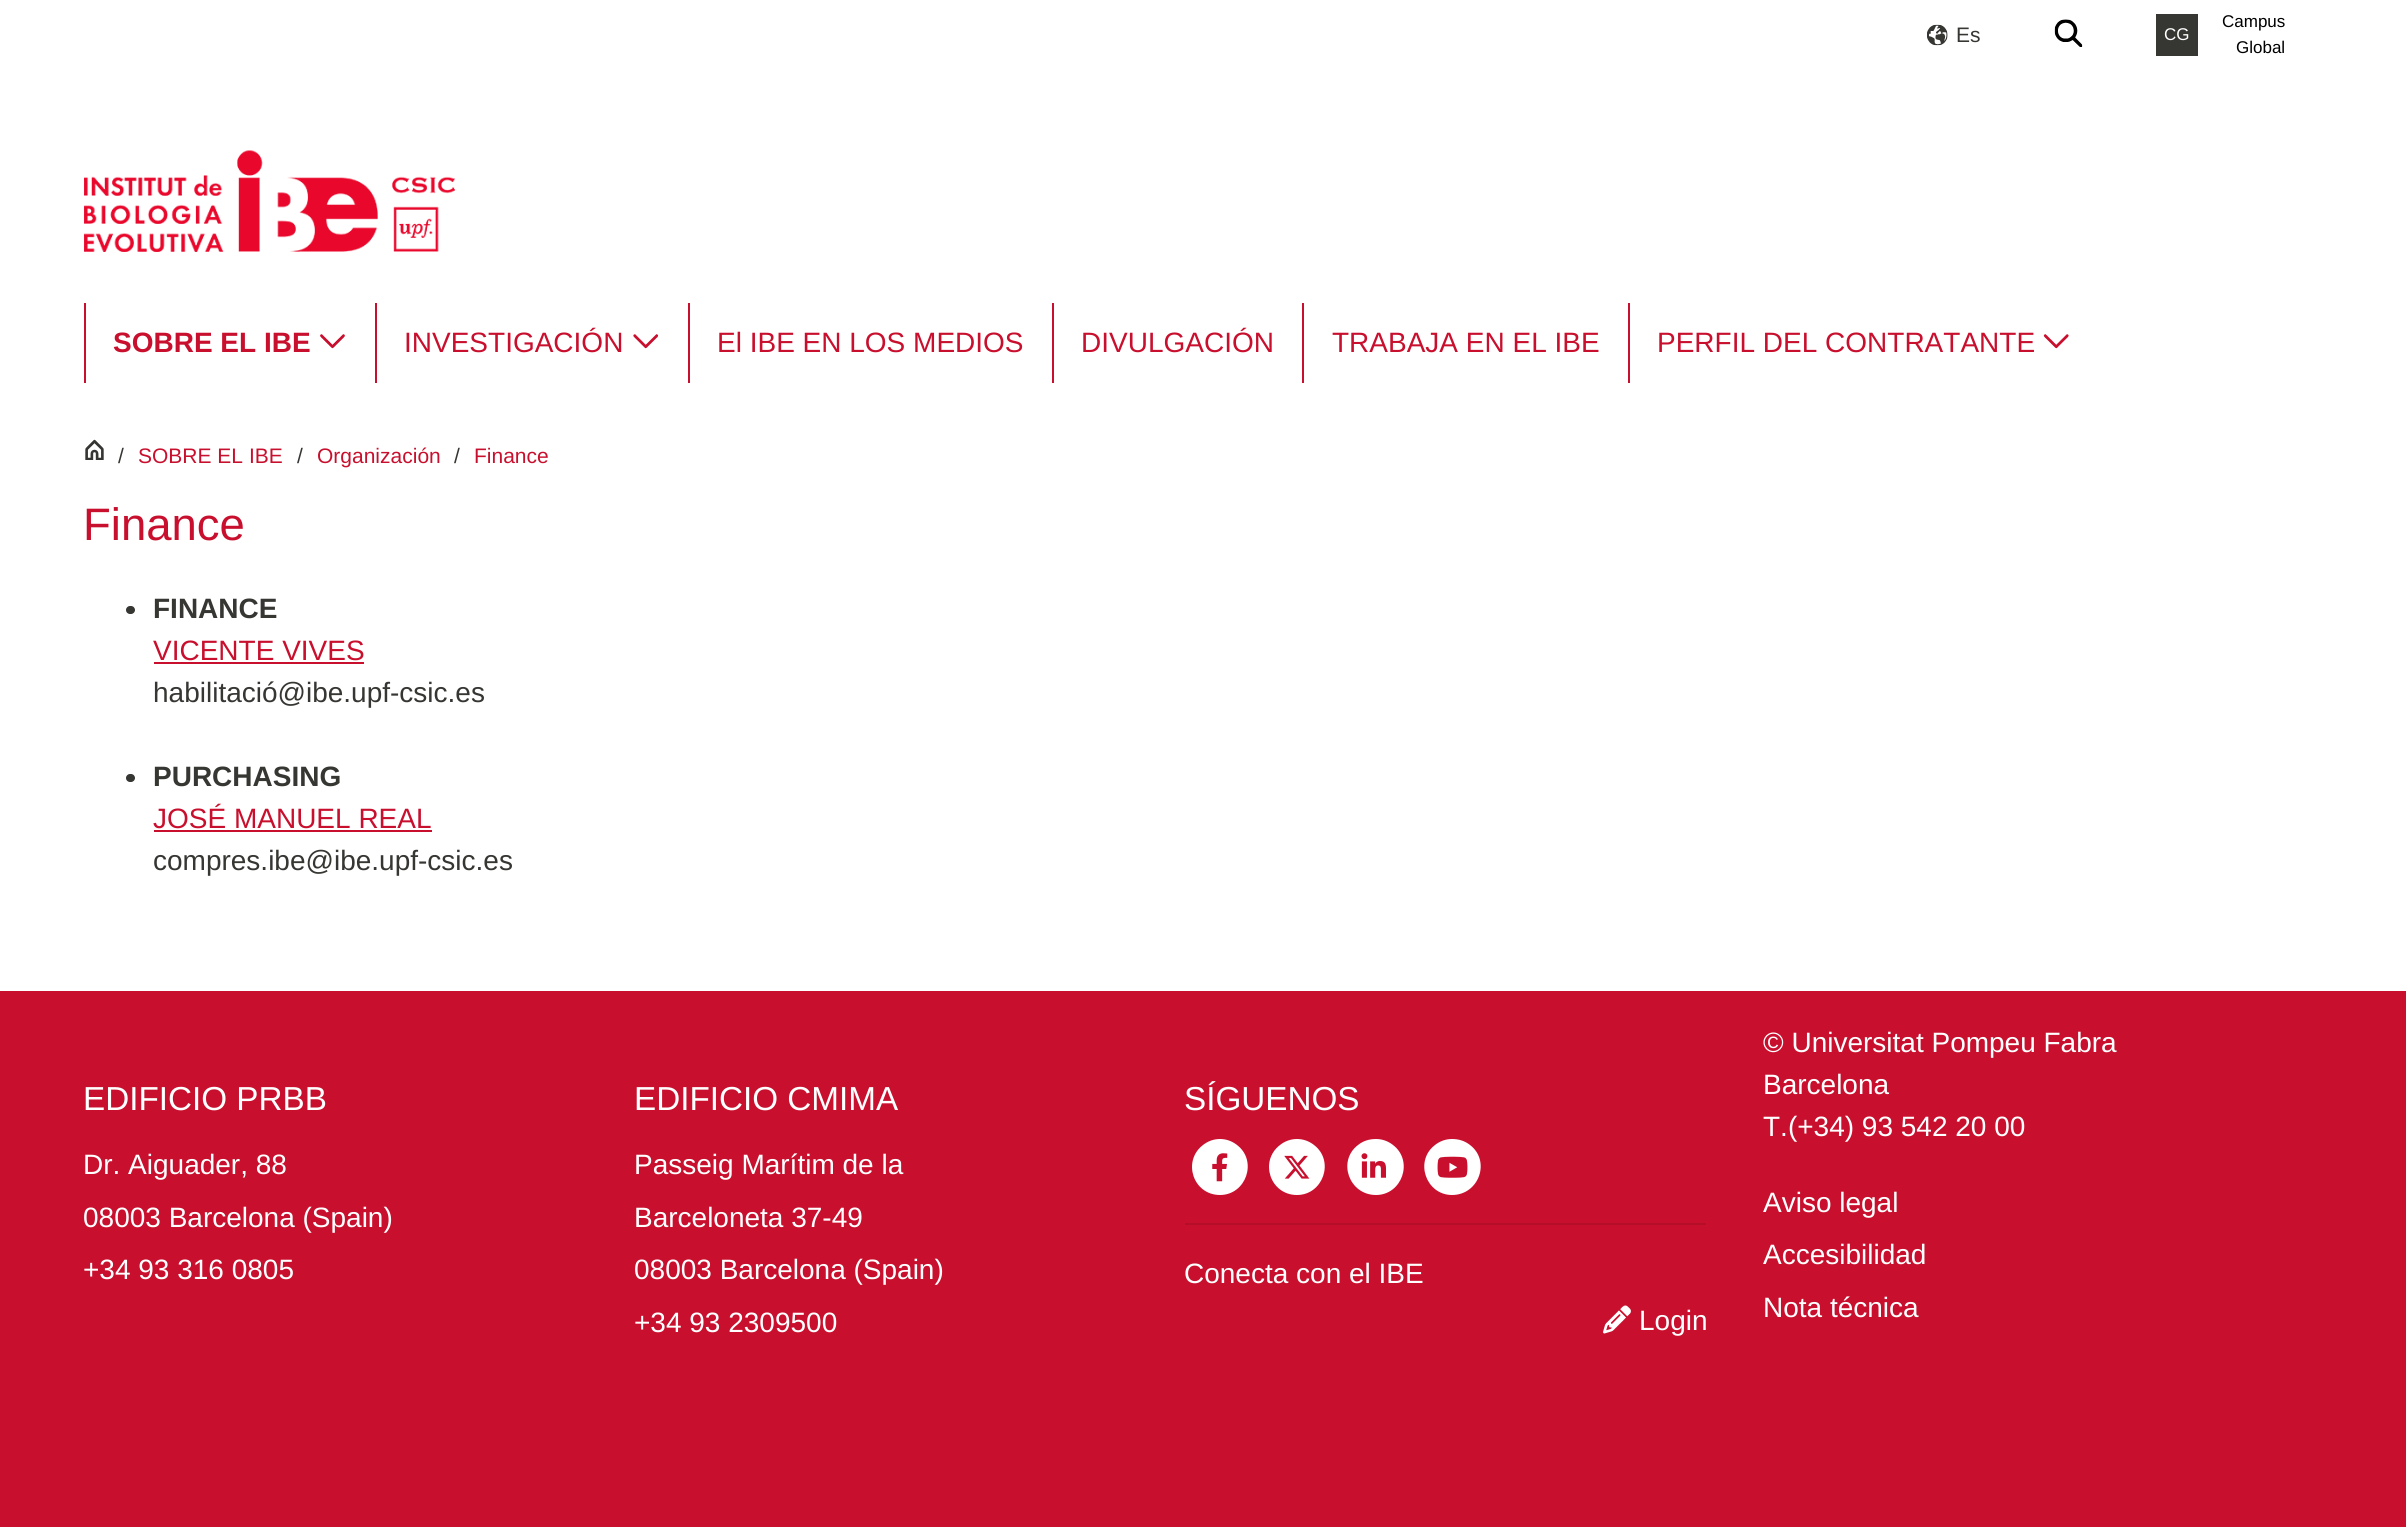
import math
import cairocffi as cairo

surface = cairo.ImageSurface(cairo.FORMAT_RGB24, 2406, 1527)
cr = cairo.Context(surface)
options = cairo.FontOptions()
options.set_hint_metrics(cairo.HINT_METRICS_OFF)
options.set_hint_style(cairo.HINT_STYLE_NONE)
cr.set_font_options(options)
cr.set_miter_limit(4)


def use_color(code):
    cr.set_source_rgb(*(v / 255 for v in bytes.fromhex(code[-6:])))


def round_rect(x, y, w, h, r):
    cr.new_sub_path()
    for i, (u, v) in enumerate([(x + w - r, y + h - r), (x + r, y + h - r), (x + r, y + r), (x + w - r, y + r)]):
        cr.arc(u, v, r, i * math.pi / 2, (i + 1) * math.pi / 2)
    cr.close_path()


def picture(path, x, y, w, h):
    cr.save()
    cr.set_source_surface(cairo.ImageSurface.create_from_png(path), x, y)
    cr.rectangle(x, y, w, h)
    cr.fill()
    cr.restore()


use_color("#c8102e")
cr.paint()
use_color("#ffffff")
cr.rectangle(0, 0, 2406, 991)
cr.fill()
picture("img1.png", 1927, 24, 21, 22)
cr.select_font_face("Liberation Sans")
cr.set_font_size(21)
use_color("#363733")
cr.move_to(1956, 42)
cr.show_text("Es")
picture("img2.png", 2054, 19, 29, 28)
cr.rectangle(2156, 14, 42, 42)
cr.fill()
cr.set_font_size(17)
use_color("#ffffff")
cr.move_to(2164, 40)
cr.show_text("CG")
use_color("#000000")
cr.move_to(2222, 27)
cr.show_text("Campus")
cr.move_to(2236, 53)
cr.show_text("Global")
picture("img3.png", 84, 150, 371, 102)
use_color("#c8102e")
cr.rectangle(84, 303, 2, 80)
cr.fill()
cr.select_font_face("Liberation Sans", cairo.FONT_SLANT_NORMAL, cairo.FONT_WEIGHT_BOLD)
cr.set_font_size(28)
cr.move_to(113, 352)
cr.show_text("SOBRE EL IBE")
picture("img4.png", 320, 334, 25, 15)
cr.rectangle(375, 303, 2, 80)
cr.fill()
cr.select_font_face("Liberation Sans")
cr.move_to(404, 352)
cr.show_text("INVESTIGACIÓN")
picture("img5.png", 633, 334, 26, 15)
cr.rectangle(688, 303, 2, 80)
cr.fill()
cr.move_to(717, 352)
cr.show_text("El IBE EN LOS MEDIOS")
cr.rectangle(1052, 303, 2, 80)
cr.fill()
cr.move_to(1081, 352)
cr.show_text("DIVULGACIÓN")
cr.rectangle(1302, 303, 2, 80)
cr.fill()
cr.move_to(1332, 352)
cr.show_text("TRABAJA EN EL IBE")
cr.rectangle(1628, 303, 2, 80)
cr.fill()
cr.move_to(1657, 352)
cr.show_text("PERFIL DEL CONTRATANTE")
picture("img6.png", 2043, 334, 26, 15)
picture("img7.png", 85, 439, 19, 21)
cr.set_font_size(21)
use_color("#363733")
cr.move_to(118, 463)
cr.show_text("/")
use_color("#c8102e")
cr.move_to(138, 463)
cr.show_text("SOBRE EL IBE")
use_color("#363733")
cr.move_to(297, 463)
cr.show_text("/")
use_color("#c8102e")
cr.move_to(317, 463)
cr.show_text("Organización")
use_color("#363733")
cr.move_to(454, 463)
cr.show_text("/")
use_color("#c8102e")
cr.move_to(474, 463)
cr.show_text("Finance")
cr.set_font_size(45.5)
cr.move_to(83, 540)
cr.show_text("Finance")
use_color("#363733")
round_rect(126, 606, 9, 8, 4)
cr.fill()
cr.select_font_face("Liberation Sans", cairo.FONT_SLANT_NORMAL, cairo.FONT_WEIGHT_BOLD)
cr.set_font_size(28)
cr.move_to(153, 618)
cr.show_text("FINANCE")
cr.select_font_face("Liberation Sans")
use_color("#c8102e")
cr.move_to(153, 660)
cr.show_text("VICENTE VIVES")
cr.rectangle(154, 662, 210, 2)
cr.fill()
use_color("#363733")
cr.move_to(153, 702)
cr.show_text("habilitació@ibe.upf-csic.es")
round_rect(126, 774, 9, 8, 4)
cr.fill()
cr.select_font_face("Liberation Sans", cairo.FONT_SLANT_NORMAL, cairo.FONT_WEIGHT_BOLD)
cr.move_to(153, 786)
cr.show_text("PURCHASING")
cr.select_font_face("Liberation Sans")
use_color("#c8102e")
cr.move_to(153, 828)
cr.show_text("JOSÉ MANUEL REAL")
cr.rectangle(154, 830, 278, 2)
cr.fill()
use_color("#363733")
cr.move_to(153, 870)
cr.show_text("compres.ibe@ibe.upf-csic.es")
cr.set_font_size(33.25)
use_color("#ffffff")
cr.move_to(83, 1110)
cr.show_text("EDIFICIO PRBB")
cr.set_font_size(28)
cr.move_to(83, 1174)
cr.show_text("Dr. Aiguader, 88")
cr.move_to(83, 1227)
cr.show_text("08003 Barcelona (Spain)")
cr.move_to(83, 1279)
cr.show_text("+34 93 316 0805")
cr.set_font_size(33.25)
cr.move_to(634, 1110)
cr.show_text("EDIFICIO CMIMA")
cr.set_font_size(28)
cr.move_to(634, 1174)
cr.show_text("Passeig Marítim de la")
cr.move_to(634, 1227)
cr.show_text("Barceloneta 37-49")
cr.move_to(634, 1279)
cr.show_text("08003 Barcelona (Spain)")
cr.move_to(634, 1332)
cr.show_text("+34 93 2309500")
cr.set_font_size(33.25)
cr.move_to(1184, 1110)
cr.show_text("SÍGUENOS")
cr.new_path()
cr.move_to(1220, 1195)
cr.curve_to(1246, 1195, 1258, 1161, 1237, 1145)
cr.curve_to(1232, 1141, 1226, 1139, 1220, 1139)
cr.curve_to(1214, 1139, 1208, 1141, 1203, 1145)
cr.curve_to(1182, 1161, 1193, 1195, 1220, 1195)
cr.close_path()
cr.fill()
picture("img8.png", 1212, 1153, 16, 29)
cr.new_path()
cr.move_to(1297, 1195)
cr.curve_to(1323, 1195, 1335, 1161, 1314, 1145)
cr.curve_to(1309, 1141, 1303, 1139, 1297, 1139)
cr.curve_to(1291, 1139, 1285, 1141, 1280, 1145)
cr.curve_to(1259, 1161, 1270, 1195, 1297, 1195)
cr.close_path()
cr.fill()
picture("img9.png", 1284, 1155, 26, 24)
cr.new_path()
cr.move_to(1376, 1195)
cr.curve_to(1402, 1195, 1414, 1161, 1393, 1145)
cr.curve_to(1388, 1141, 1382, 1139, 1376, 1139)
cr.curve_to(1369, 1139, 1363, 1141, 1358, 1145)
cr.curve_to(1337, 1161, 1349, 1195, 1376, 1195)
cr.close_path()
cr.fill()
picture("img10.png", 1361, 1153, 25, 25)
cr.new_path()
cr.move_to(1452, 1195)
cr.curve_to(1479, 1195, 1491, 1161, 1470, 1145)
cr.curve_to(1465, 1141, 1459, 1139, 1452, 1139)
cr.curve_to(1446, 1139, 1440, 1141, 1435, 1145)
cr.curve_to(1414, 1161, 1426, 1195, 1452, 1195)
cr.close_path()
cr.fill()
picture("img11.png", 1437, 1156, 31, 22)
use_color("#b40e29")
cr.rectangle(1185, 1223, 521, 2)
cr.fill()
cr.set_font_size(28)
use_color("#ffffff")
cr.move_to(1184, 1283)
cr.show_text("Conecta con el IBE")
picture("img12.png", 1603, 1305, 28, 29)
cr.move_to(1639, 1330)
cr.show_text("Login")
cr.move_to(1763, 1052)
cr.show_text("© Universitat Pompeu Fabra")
cr.move_to(1763, 1094)
cr.show_text("Barcelona")
cr.move_to(1763, 1136)
cr.show_text("T.(+34) 93 542 20 00")
cr.move_to(1763, 1212)
cr.show_text("Aviso legal")
cr.move_to(1763, 1264)
cr.show_text("Accesibilidad")
cr.move_to(1763, 1317)
cr.show_text("Nota técnica")
surface.write_to_png("result.png")
